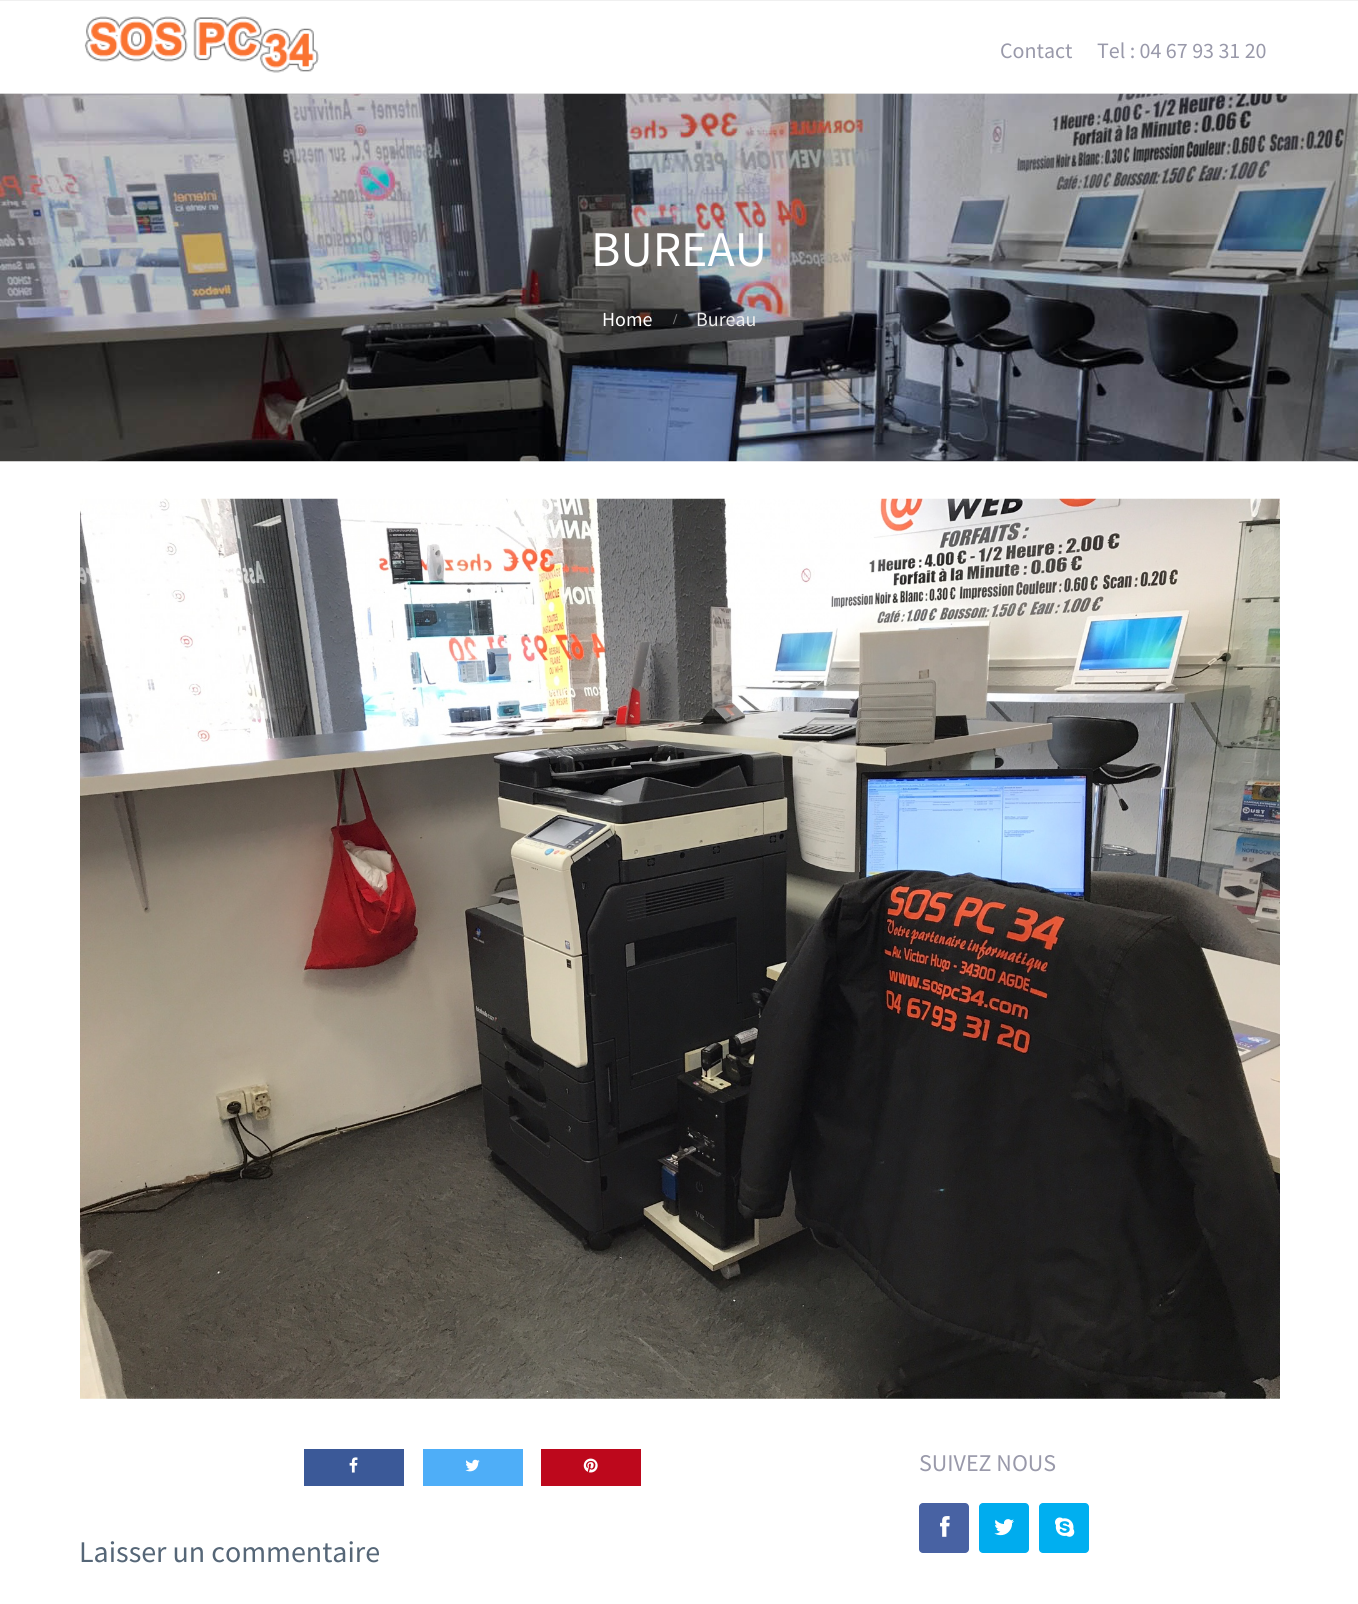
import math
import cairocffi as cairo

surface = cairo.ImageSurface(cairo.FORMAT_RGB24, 1358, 1604)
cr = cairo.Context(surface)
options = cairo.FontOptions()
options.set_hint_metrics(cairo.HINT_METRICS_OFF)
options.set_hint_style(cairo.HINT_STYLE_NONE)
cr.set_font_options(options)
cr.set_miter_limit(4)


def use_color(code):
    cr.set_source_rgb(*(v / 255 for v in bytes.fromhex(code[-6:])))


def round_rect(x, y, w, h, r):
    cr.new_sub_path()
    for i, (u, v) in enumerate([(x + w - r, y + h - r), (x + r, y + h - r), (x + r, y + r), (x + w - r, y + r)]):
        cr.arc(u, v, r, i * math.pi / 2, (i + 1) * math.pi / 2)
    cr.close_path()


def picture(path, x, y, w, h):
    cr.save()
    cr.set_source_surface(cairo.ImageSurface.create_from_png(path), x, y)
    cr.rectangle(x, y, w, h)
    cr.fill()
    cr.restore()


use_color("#f0f0f0")
cr.paint()
use_color("#ffffff")
cr.rectangle(0, 1, 1358, 92)
cr.fill()
picture("img1.png", 84, 16, 235, 57)
cr.select_font_face("Source Sans Pro")
cr.set_font_size(22)
use_color("#9999aa")
cr.move_to(1000, 58)
cr.show_text("Contact")
cr.move_to(1097, 58)
cr.show_text("Tel : 04 67 93 31 20")
use_color("#ffffff")
cr.rectangle(0, 461, 1358, 1143)
cr.fill()
picture("img2.png", 0, 93, 1358, 369)
cr.set_font_size(50)
cr.move_to(591, 266)
cr.show_text("BUREAU")
cr.set_font_size(20)
cr.move_to(602, 326)
cr.show_text("Home")
cr.select_font_face("Liberation Serif", cairo.FONT_SLANT_NORMAL, cairo.FONT_WEIGHT_BOLD)
cr.set_font_size(15)
use_color("#797a7b")
cr.move_to(673, 324)
cr.show_text("/")
cr.select_font_face("Source Sans Pro")
cr.set_font_size(20)
use_color("#eeeeee")
cr.move_to(696, 326)
cr.show_text("Bureau")
picture("img3.png", 80, 498, 1200, 901)
cr.set_font_size(24)
use_color("#9999aa")
cr.move_to(919, 1471)
cr.show_text("SUIVEZ NOUS")
use_color("#4862a3")
round_rect(919, 1503, 50, 50, 4)
cr.fill()
picture("img4.png", 940, 1516, 10, 21)
use_color("#00acee")
round_rect(979, 1503, 50, 50, 4)
cr.fill()
picture("img5.png", 994, 1519, 20, 17)
use_color("#00aff0")
round_rect(1039, 1503, 50, 50, 4)
cr.fill()
picture("img6.png", 1055, 1517, 20, 20)
use_color("#3b5998")
cr.rectangle(304, 1449, 100, 37)
cr.fill()
picture("img7.png", 349, 1457, 9, 16)
use_color("#4eaef8")
cr.rectangle(423, 1449, 100, 37)
cr.fill()
picture("img8.png", 465, 1459, 15, 13)
use_color("#bd081c")
cr.rectangle(541, 1449, 100, 37)
cr.fill()
picture("img9.png", 583, 1458, 15, 15)
cr.set_font_size(30)
use_color("#556677")
cr.move_to(79, 1562)
cr.show_text("Laisser un commentaire")
surface.write_to_png("result.png")
